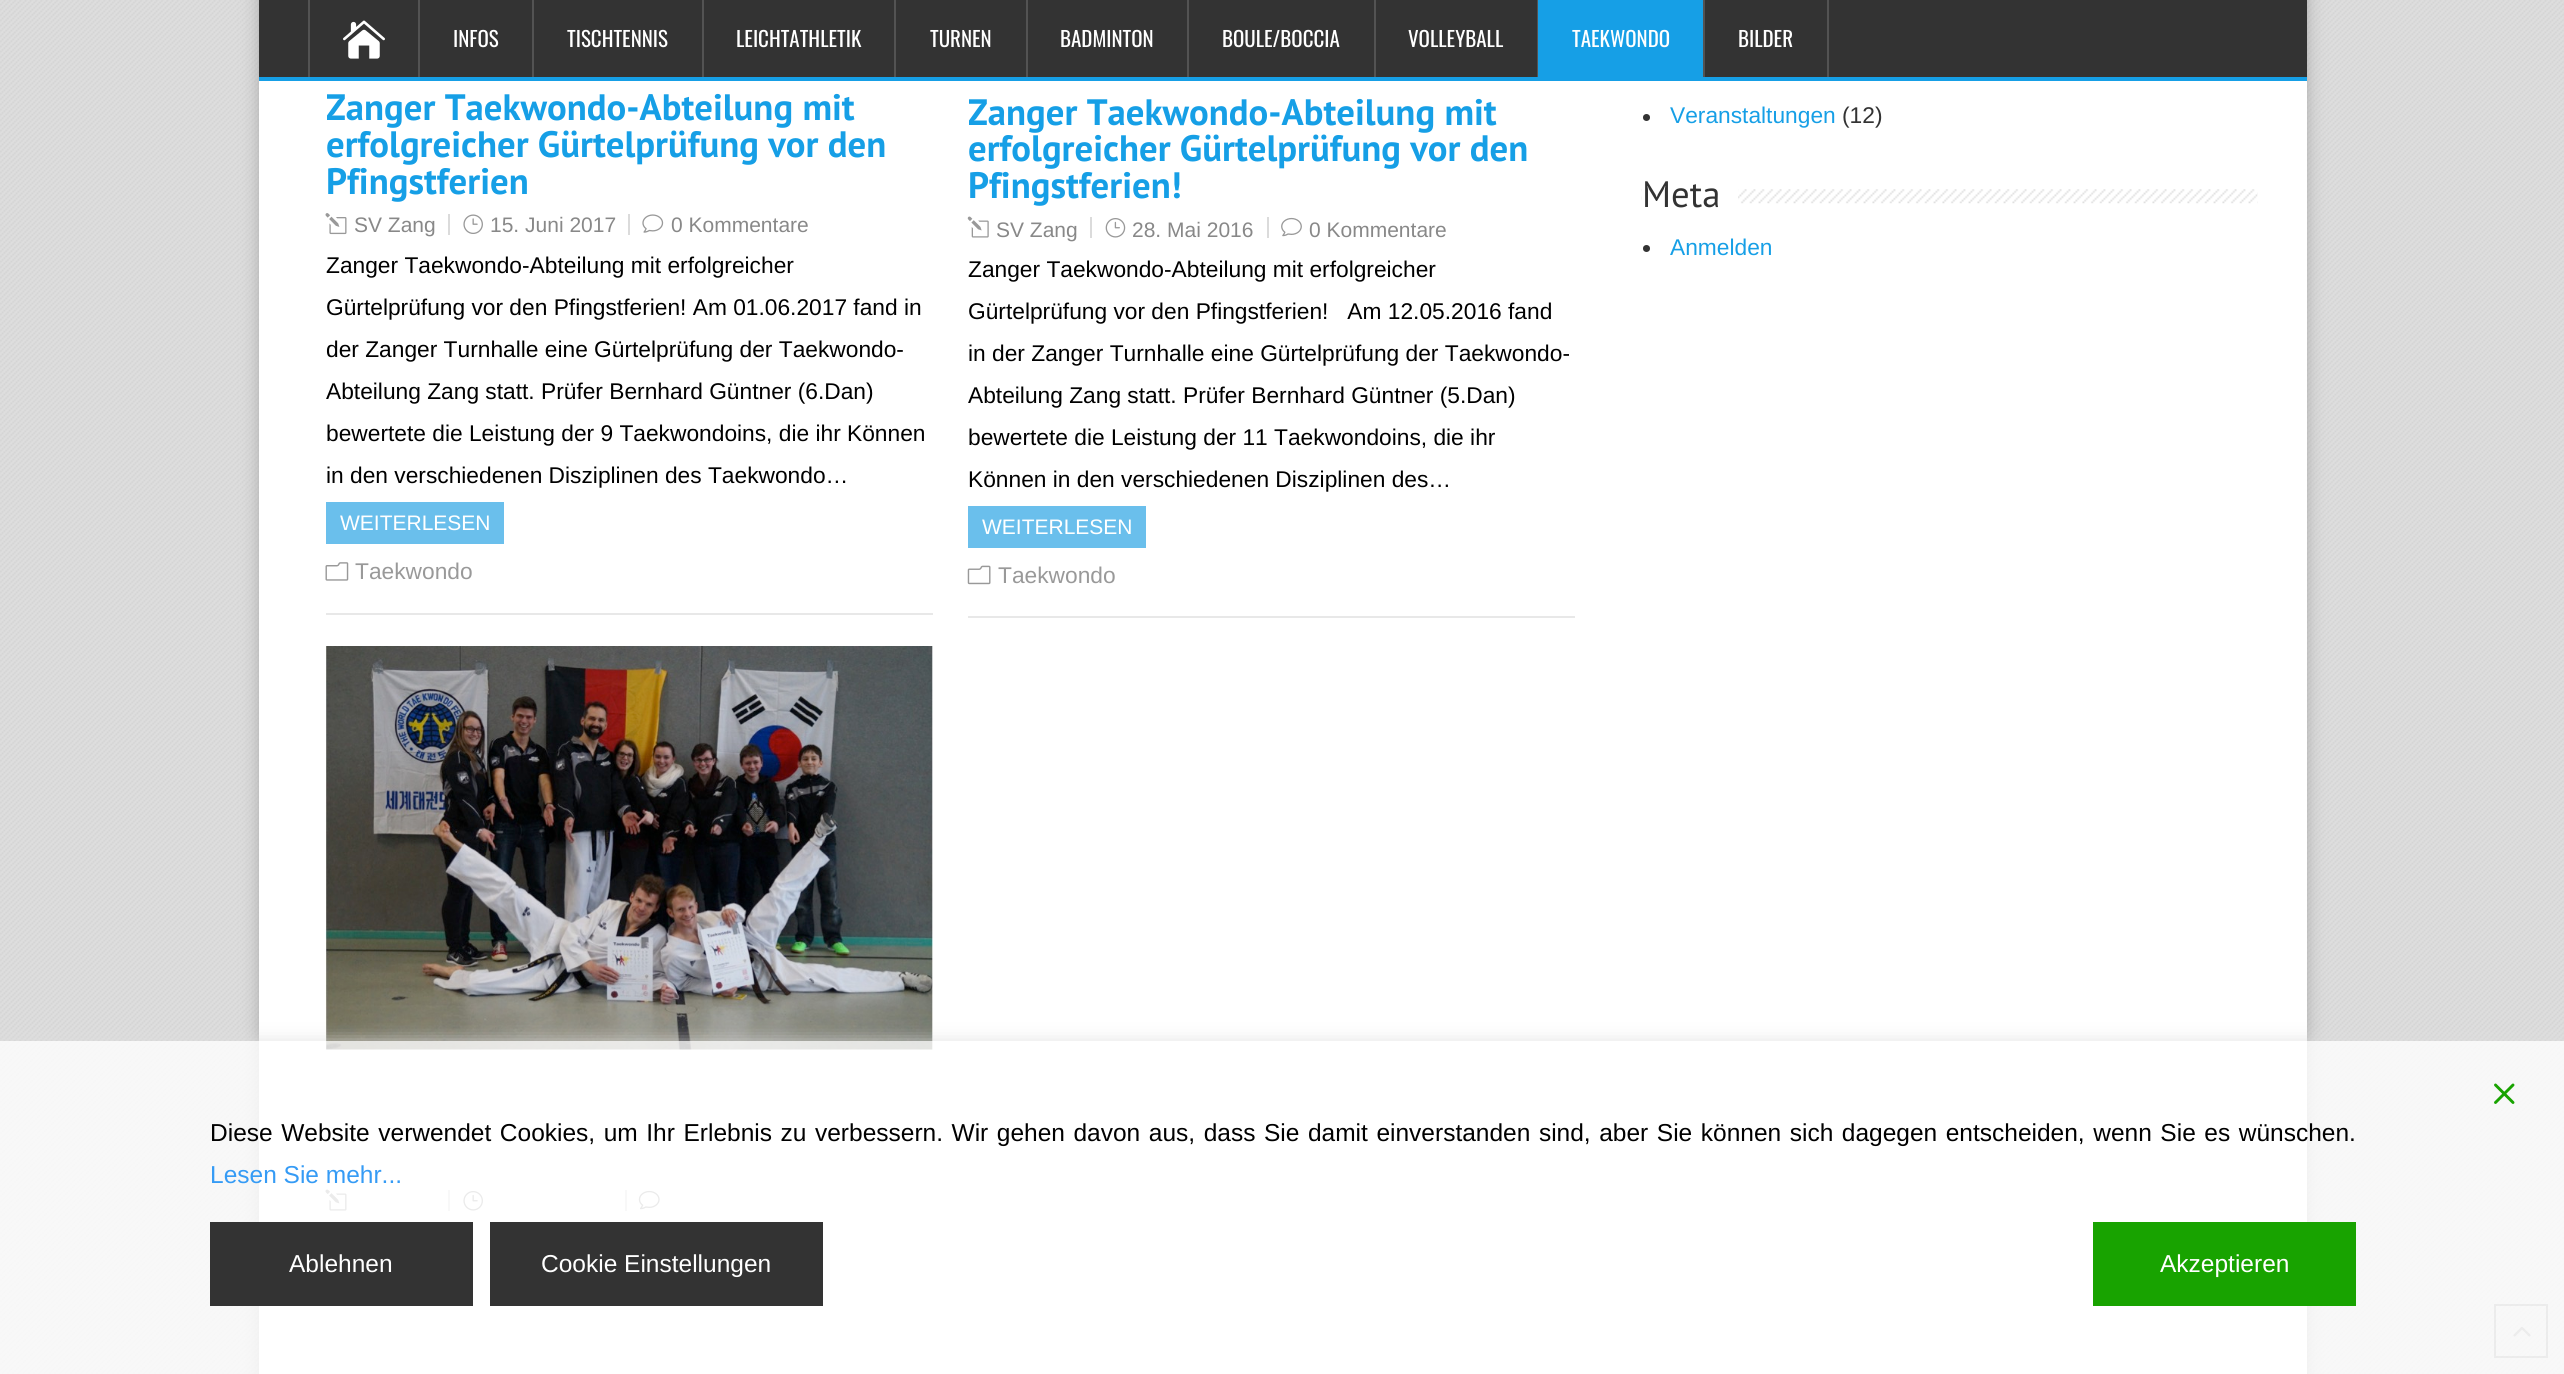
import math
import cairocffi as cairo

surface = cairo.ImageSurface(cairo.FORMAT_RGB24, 2564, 1374)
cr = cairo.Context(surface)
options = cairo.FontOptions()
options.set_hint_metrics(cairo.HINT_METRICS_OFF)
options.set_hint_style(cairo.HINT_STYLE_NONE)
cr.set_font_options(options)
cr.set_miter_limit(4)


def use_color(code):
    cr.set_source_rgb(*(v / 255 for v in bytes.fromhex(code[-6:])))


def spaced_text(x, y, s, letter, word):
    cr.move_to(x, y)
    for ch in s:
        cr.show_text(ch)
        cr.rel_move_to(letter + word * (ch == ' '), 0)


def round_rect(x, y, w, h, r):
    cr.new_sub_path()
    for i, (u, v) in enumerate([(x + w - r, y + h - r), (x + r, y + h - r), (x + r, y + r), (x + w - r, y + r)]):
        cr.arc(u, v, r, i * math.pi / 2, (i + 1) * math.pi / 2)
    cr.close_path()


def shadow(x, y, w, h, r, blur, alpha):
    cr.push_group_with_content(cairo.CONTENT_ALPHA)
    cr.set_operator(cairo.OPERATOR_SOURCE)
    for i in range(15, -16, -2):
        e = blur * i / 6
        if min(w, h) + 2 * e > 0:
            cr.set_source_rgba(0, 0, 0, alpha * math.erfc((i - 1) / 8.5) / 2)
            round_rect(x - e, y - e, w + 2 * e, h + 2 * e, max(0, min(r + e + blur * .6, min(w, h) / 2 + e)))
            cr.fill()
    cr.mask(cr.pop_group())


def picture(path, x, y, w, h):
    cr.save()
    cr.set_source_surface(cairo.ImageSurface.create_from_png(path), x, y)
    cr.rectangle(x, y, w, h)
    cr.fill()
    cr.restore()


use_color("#dedede")
cr.paint()
picture("img1.png", 0, 0, 2564, 1374)
use_color("#aaaaaa")
shadow(259, -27, 2048, 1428, 0, 9, 1)
use_color("#ffffff")
cr.rectangle(259, 81, 2048, 1293)
cr.fill()
use_color("#333333")
cr.rectangle(259, 0, 2048, 77)
cr.fill()
use_color("#169fe6")
cr.rectangle(259, 77, 2048, 4)
cr.fill()
use_color("#535353")
cr.rectangle(418, 0, 2, 77)
cr.fill()
cr.rectangle(308, 0, 2, 77)
cr.fill()
picture("img2.png", 343, 20, 42, 39)
cr.rectangle(532, 0, 2, 77)
cr.fill()
cr.select_font_face("Oswald")
cr.set_font_size(21)
use_color("#ffffff")
cr.move_to(453, 47)
cr.show_text("INFOS")
use_color("#535353")
cr.rectangle(702, 0, 2, 77)
cr.fill()
use_color("#ffffff")
cr.move_to(567, 47)
cr.show_text("TISCHTENNIS")
use_color("#535353")
cr.rectangle(894, 0, 2, 77)
cr.fill()
use_color("#ffffff")
cr.move_to(736, 47)
cr.show_text("LEICHTATHLETIK")
use_color("#535353")
cr.rectangle(1026, 0, 2, 77)
cr.fill()
use_color("#ffffff")
cr.move_to(930, 47)
cr.show_text("TURNEN")
use_color("#535353")
cr.rectangle(1187, 0, 2, 77)
cr.fill()
use_color("#ffffff")
cr.move_to(1060, 47)
cr.show_text("BADMINTON")
use_color("#535353")
cr.rectangle(1374, 0, 2, 77)
cr.fill()
use_color("#ffffff")
cr.move_to(1222, 47)
cr.show_text("BOULE/BOCCIA")
use_color("#535353")
cr.rectangle(1537, 0, 1, 77)
cr.fill()
use_color("#ffffff")
cr.move_to(1408, 47)
cr.show_text("VOLLEYBALL")
use_color("#169fe6")
cr.rectangle(1538, 0, 165, 77)
cr.fill()
use_color("#535353")
cr.rectangle(1703, 0, 2, 77)
cr.fill()
use_color("#ffffff")
cr.move_to(1572, 47)
cr.show_text("TAEKWONDO")
use_color("#535353")
cr.rectangle(1827, 0, 2, 77)
cr.fill()
use_color("#ffffff")
cr.move_to(1738, 47)
cr.show_text("BILDER")
use_color("#e8e8e8")
cr.rectangle(326, 613, 607, 2)
cr.fill()
cr.select_font_face("PT Sans", cairo.FONT_SLANT_NORMAL, cairo.FONT_WEIGHT_BOLD)
cr.set_font_size(36.75)
use_color("#169fe6")
cr.move_to(326, 120)
cr.show_text("Zanger Taekwondo-Abteilung mit")
cr.move_to(326, 157)
cr.show_text("erfolgreicher Gürtelprüfung vor den")
cr.move_to(326, 194)
cr.show_text("Pfingstferien")
picture("img3.png", 325, 213, 22, 22)
cr.select_font_face("Liberation Sans")
cr.set_font_size(21)
use_color("#888888")
cr.move_to(354, 232)
cr.show_text("SV Zang")
picture("img4.png", 463, 214, 20, 20)
cr.move_to(490, 232)
cr.show_text("15. Juni 2017")
use_color("#dbdbdb")
cr.rectangle(448, 214, 2, 21)
cr.fill()
picture("img5.png", 642, 214, 22, 19)
use_color("#888888")
cr.move_to(671, 232)
cr.show_text("0 Kommentare")
use_color("#dbdbdb")
cr.rectangle(628, 214, 2, 21)
cr.fill()
cr.set_font_size(22.75)
use_color("#000000")
cr.move_to(326, 273)
cr.show_text("Zanger Taekwondo-Abteilung mit erfolgreicher")
cr.move_to(326, 315)
cr.show_text("Gürtelprüfung vor den Pfingstferien! Am 01.06.2017 fand in")
cr.move_to(326, 357)
cr.show_text("der Zanger Turnhalle eine Gürtelprüfung der Taekwondo-")
cr.move_to(326, 399)
cr.show_text("Abteilung Zang statt. Prüfer Bernhard Güntner (6.Dan)")
cr.move_to(326, 441)
cr.show_text("bewertete die Leistung der 9 Taekwondoins, die ihr Können")
cr.move_to(326, 483)
cr.show_text("in den verschiedenen Disziplinen des Taekwondo…")
use_color("#6abfec")
cr.rectangle(326, 502, 178, 42)
cr.fill()
cr.set_font_size(21)
use_color("#ffffff")
cr.move_to(340, 530)
cr.show_text("WEITERLESEN")
picture("img6.png", 325, 562, 24, 19)
cr.set_font_size(22.75)
use_color("#999999")
cr.move_to(355, 579)
cr.show_text("Taekwondo")
use_color("#e8e8e8")
cr.rectangle(968, 616, 607, 2)
cr.fill()
cr.select_font_face("PT Sans", cairo.FONT_SLANT_NORMAL, cairo.FONT_WEIGHT_BOLD)
cr.set_font_size(36.75)
use_color("#169fe6")
cr.move_to(968, 125)
cr.show_text("Zanger Taekwondo-Abteilung mit")
cr.move_to(968, 161)
cr.show_text("erfolgreicher Gürtelprüfung vor den")
cr.move_to(968, 198)
cr.show_text("Pfingstferien!")
picture("img7.png", 967, 216, 22, 22)
cr.select_font_face("Liberation Sans")
cr.set_font_size(21)
use_color("#888888")
cr.move_to(996, 237)
cr.show_text("SV Zang")
picture("img8.png", 1105, 218, 21, 20)
cr.move_to(1132, 237)
cr.show_text("28. Mai 2016")
use_color("#dbdbdb")
cr.rectangle(1090, 217, 2, 21)
cr.fill()
picture("img9.png", 1281, 217, 21, 20)
use_color("#888888")
cr.move_to(1309, 237)
cr.show_text("0 Kommentare")
use_color("#dbdbdb")
cr.rectangle(1267, 217, 2, 21)
cr.fill()
cr.set_font_size(22.75)
use_color("#000000")
cr.move_to(968, 277)
cr.show_text("Zanger Taekwondo-Abteilung mit erfolgreicher")
cr.move_to(968, 319)
cr.show_text("Gürtelprüfung vor den Pfingstferien!   Am 12.05.2016 fand")
cr.move_to(968, 361)
cr.show_text("in der Zanger Turnhalle eine Gürtelprüfung der Taekwondo-")
cr.move_to(968, 403)
cr.show_text("Abteilung Zang statt. Prüfer Bernhard Güntner (5.Dan)")
cr.move_to(968, 445)
cr.show_text("bewertete die Leistung der 11 Taekwondoins, die ihr")
cr.move_to(968, 487)
cr.show_text("Können in den verschiedenen Disziplinen des…")
use_color("#6abfec")
cr.rectangle(968, 506, 178, 42)
cr.fill()
cr.set_font_size(21)
use_color("#ffffff")
cr.move_to(982, 534)
cr.show_text("WEITERLESEN")
picture("img10.png", 967, 565, 24, 20)
cr.set_font_size(22.75)
use_color("#999999")
cr.move_to(998, 583)
cr.show_text("Taekwondo")
picture("img11.png", 325, 646, 608, 404)
picture("img12.png", 325, 1189, 22, 22)
use_color("#dbdbdb")
cr.rectangle(448, 1190, 2, 21)
cr.fill()
picture("img13.png", 463, 1191, 20, 20)
cr.rectangle(625, 1190, 2, 21)
cr.fill()
picture("img14.png", 638, 1190, 22, 20)
use_color("#333333")
cr.arc(1646.5, 117.5, 3.5, 0, 2 * math.pi)
cr.fill()
use_color("#169fe6")
cr.move_to(1670, 123)
cr.show_text("Veranstaltungen")
use_color("#333333")
cr.move_to(1842, 123)
cr.show_text("(12)")
picture("img15.png", 1641, 189, 617, 15)
use_color("#ffffff")
cr.rectangle(1642, 189, 96, 15)
cr.fill()
cr.select_font_face("PT Sans")
cr.set_font_size(36.75)
use_color("#333333")
cr.move_to(1642, 207)
cr.show_text("Meta")
cr.new_path()
cr.arc(1646.5, 248.5, 3.5, 0, 2 * math.pi)
cr.fill()
cr.select_font_face("Liberation Sans")
cr.set_font_size(22.75)
use_color("#169fe6")
cr.move_to(1670, 255)
cr.show_text("Anmelden")
cr.rectangle(2495, 1305, 52, 52)
cr.set_source_rgba(0.067, 0.067, 0.067, 0.3)
cr.stroke()
picture("img17.png", 2513, 1327, 18, 10)
cr.save()
cr.set_fill_rule(cairo.FILL_RULE_EVEN_ODD)
cr.new_path()
cr.move_to(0, 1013)
cr.line_to(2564, 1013)
cr.line_to(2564, 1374)
cr.line_to(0, 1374)
cr.close_path()
cr.move_to(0, 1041)
cr.line_to(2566, 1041)
cr.line_to(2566, 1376)
cr.line_to(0, 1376)
cr.close_path()
cr.clip()
use_color("#dddddd")
shadow(-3, 1043, 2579, 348, 0, 9.5, 1)
cr.restore()
cr.set_source_rgba(1, 1, 1, 0.8)
cr.rectangle(0, 1041, 2564, 333)
cr.fill()
picture("img16.png", 2494, 1083, 21, 21)
cr.set_font_size(24.5)
use_color("#000000")
spaced_text(210, 1141, "Diese Website verwendet Cookies, um Ihr Erlebnis zu verbessern. Wir gehen davon aus, dass Sie damit einverstanden sind, aber Sie können sich dagegen entscheiden, wenn Sie es wünschen.", 0, 1.75)
use_color("#359bf5")
cr.move_to(210, 1183)
cr.show_text("Lesen Sie mehr...")
use_color("#333333")
cr.rectangle(210, 1222, 263, 84)
cr.fill()
use_color("#ffffff")
cr.move_to(289, 1272)
cr.show_text("Ablehnen")
use_color("#333333")
cr.rectangle(490, 1222, 333, 84)
cr.fill()
use_color("#ffffff")
cr.move_to(541, 1272)
cr.show_text("Cookie Einstellungen")
use_color("#18a300")
cr.rectangle(2093, 1222, 263, 84)
cr.fill()
use_color("#ffffff")
cr.move_to(2160, 1272)
cr.show_text("Akzeptieren")
surface.write_to_png("result.png")
